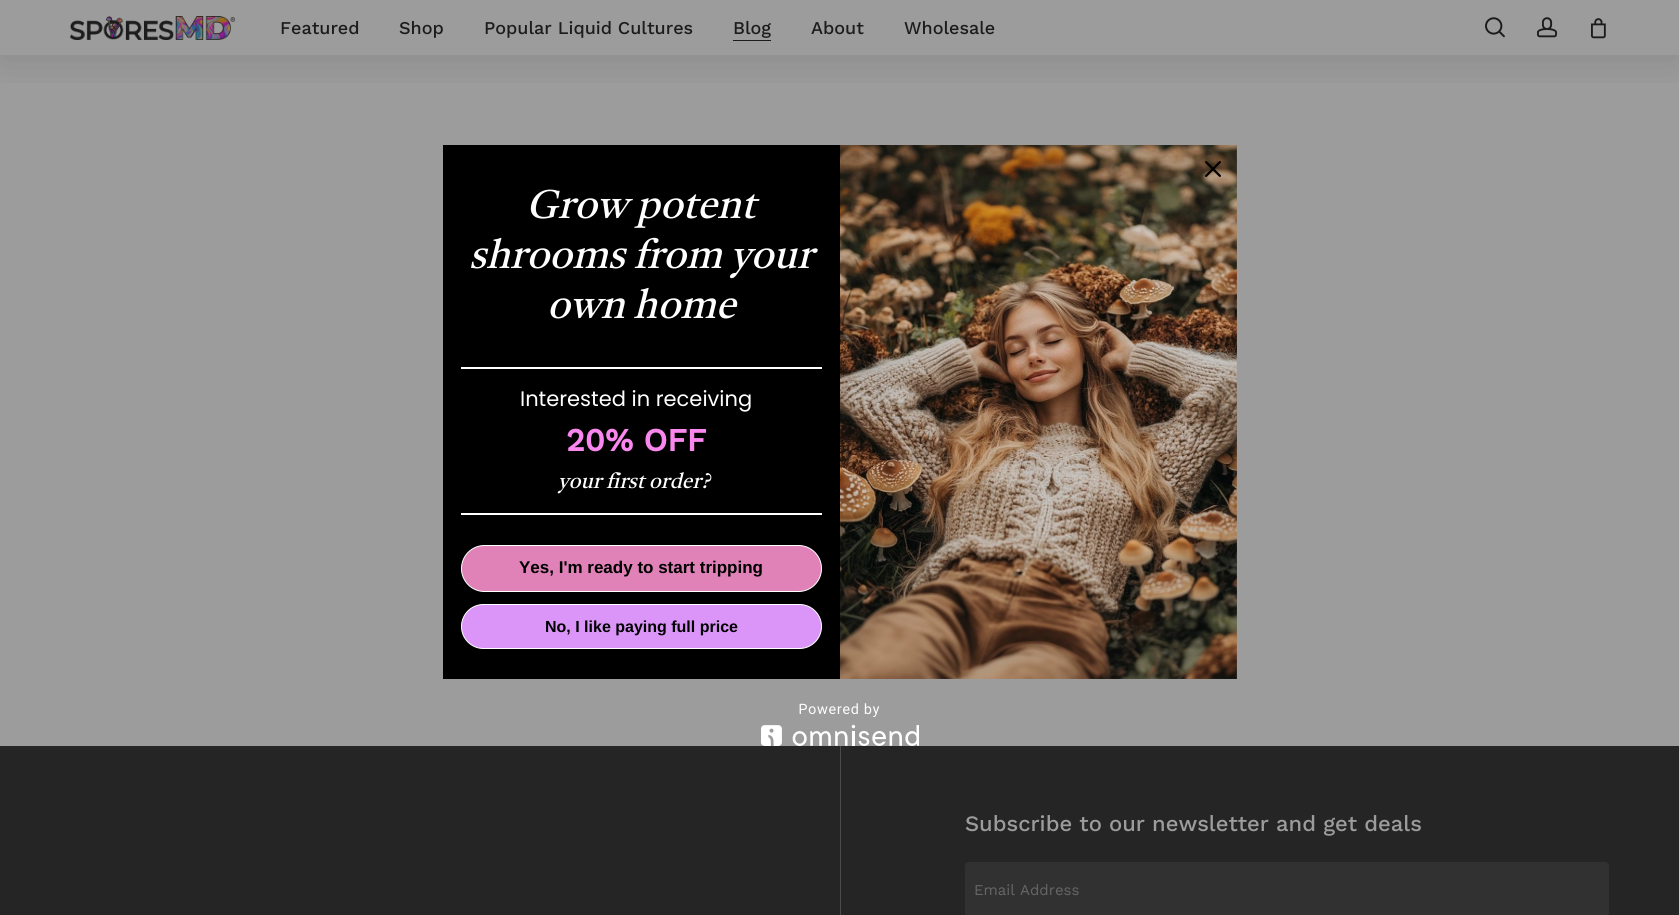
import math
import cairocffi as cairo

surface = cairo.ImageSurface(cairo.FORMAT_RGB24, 1679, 915)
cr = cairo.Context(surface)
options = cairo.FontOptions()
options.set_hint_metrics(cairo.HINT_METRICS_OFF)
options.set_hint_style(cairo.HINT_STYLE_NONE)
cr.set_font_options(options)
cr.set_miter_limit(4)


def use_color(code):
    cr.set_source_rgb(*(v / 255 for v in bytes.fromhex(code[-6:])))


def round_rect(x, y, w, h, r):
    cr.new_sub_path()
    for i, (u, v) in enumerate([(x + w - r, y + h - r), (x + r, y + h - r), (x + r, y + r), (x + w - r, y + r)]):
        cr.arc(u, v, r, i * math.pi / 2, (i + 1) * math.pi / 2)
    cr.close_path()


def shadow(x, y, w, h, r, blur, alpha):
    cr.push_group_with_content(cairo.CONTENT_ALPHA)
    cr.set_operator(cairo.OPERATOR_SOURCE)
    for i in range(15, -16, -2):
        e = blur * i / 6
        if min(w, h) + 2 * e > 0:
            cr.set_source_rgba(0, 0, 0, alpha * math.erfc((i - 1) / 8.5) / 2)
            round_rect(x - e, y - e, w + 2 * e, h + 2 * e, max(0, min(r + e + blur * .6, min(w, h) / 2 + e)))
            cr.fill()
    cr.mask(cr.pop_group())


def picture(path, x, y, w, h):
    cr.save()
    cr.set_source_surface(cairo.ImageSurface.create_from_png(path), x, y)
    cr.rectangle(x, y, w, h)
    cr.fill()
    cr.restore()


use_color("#9c9c9c")
cr.paint()
cr.save()
cr.rectangle(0, 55, 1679, 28)
cr.clip()
use_color("#1c1c1c")
shadow(0, -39, 1679, 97, 0, 22.5, 0.15)
cr.restore()
picture("img1.png", 70, 16, 165, 24)
cr.select_font_face("Work Sans Medium")
cr.set_font_size(18)
use_color("#1c1c1c")
cr.move_to(280, 34)
cr.show_text("Featured")
cr.move_to(399, 34)
cr.show_text("Shop")
cr.move_to(484, 34)
cr.show_text("Popular Liquid Cultures")
cr.move_to(733, 34)
cr.show_text("Blog")
cr.rectangle(733, 40, 38, 1)
cr.fill()
cr.move_to(811, 34)
cr.show_text("About")
cr.move_to(904, 34)
cr.show_text("Wholesale")
picture("img2.png", 1485, 17, 20, 21)
picture("img3.png", 1537, 17, 20, 21)
picture("img4.png", 1591, 18, 15, 21)
use_color("#252525")
cr.rectangle(0, 746, 1679, 169)
cr.fill()
use_color("#4b4b4b")
cr.rectangle(840, 746, 1, 169)
cr.fill()
cr.set_font_size(22)
use_color("#9c9c9c")
cr.move_to(965, 831)
cr.show_text("Subscribe to our newsletter and get deals")
use_color("#313131")
round_rect(965, 862, 644, 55, 4)
cr.fill()
cr.select_font_face("Work Sans")
cr.set_font_size(15)
use_color("#666666")
cr.move_to(974, 895)
cr.show_text("Email Address")
picture("img6.png", 840, 145, 397, 534)
picture("img5.png", 1205, 161, 16, 16)
use_color("#000000")
cr.rectangle(443, 145, 397, 534)
cr.fill()
cr.select_font_face("Castoro", cairo.FONT_SLANT_ITALIC)
cr.set_font_size(40)
use_color("#ffffff")
cr.move_to(526, 218)
cr.show_text("Grow potent")
cr.move_to(469, 268)
cr.show_text("shrooms from your")
cr.move_to(547, 318)
cr.show_text("own home")
cr.rectangle(461, 367, 361, 2)
cr.fill()
cr.select_font_face("Poppins")
cr.set_font_size(21)
cr.move_to(520, 406)
cr.show_text("Interested in receiving")
cr.select_font_face("Work Sans", cairo.FONT_SLANT_NORMAL, cairo.FONT_WEIGHT_BOLD)
cr.set_font_size(32)
use_color("#f987ed")
cr.move_to(566, 451)
cr.show_text("20% OFF")
cr.select_font_face("Castoro", cairo.FONT_SLANT_ITALIC)
cr.set_font_size(21)
use_color("#ffffff")
cr.move_to(558, 488)
cr.show_text("your first order?")
cr.rectangle(461, 513, 361, 2)
cr.fill()
use_color("#e081b7")
round_rect(461.5, 545.5, 360, 46, 23)
cr.fill_preserve()
use_color("#ffffff")
cr.set_line_width(1)
cr.stroke()
cr.select_font_face("Liberation Sans", cairo.FONT_SLANT_NORMAL, cairo.FONT_WEIGHT_BOLD)
cr.set_font_size(17)
use_color("#000000")
cr.move_to(519, 573)
cr.show_text("Yes, I'm ready to start tripping")
use_color("#db95f9")
round_rect(461.5, 604.5, 360, 44, 22)
cr.fill_preserve()
use_color("#ffffff")
cr.stroke()
cr.set_font_size(16)
use_color("#000000")
cr.move_to(545, 632)
cr.show_text("No, I like paying full price")
picture("img7.png", 761, 703, 158, 43)
surface.write_to_png("result.png")
